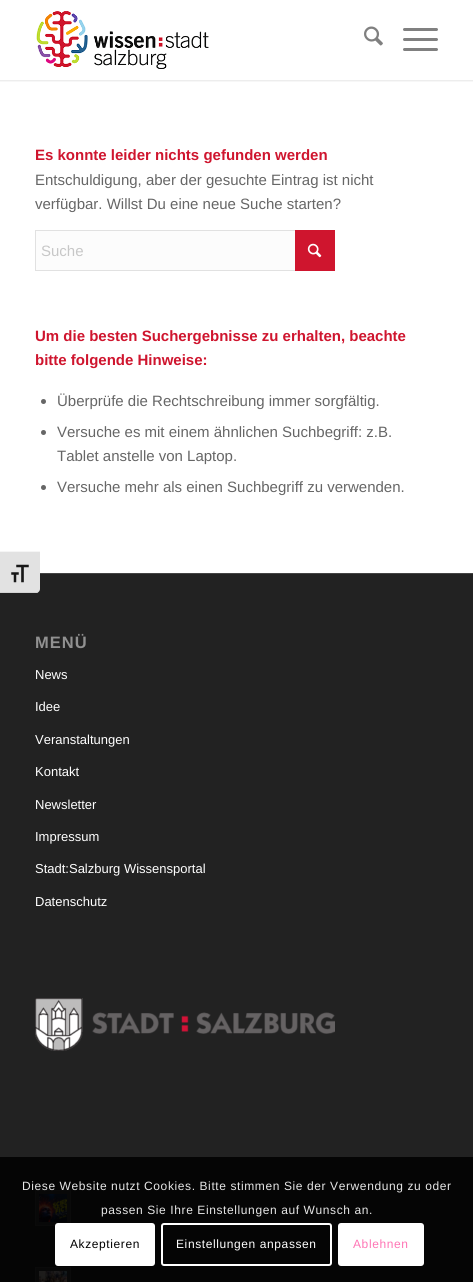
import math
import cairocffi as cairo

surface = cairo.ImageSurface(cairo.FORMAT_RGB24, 473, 1282)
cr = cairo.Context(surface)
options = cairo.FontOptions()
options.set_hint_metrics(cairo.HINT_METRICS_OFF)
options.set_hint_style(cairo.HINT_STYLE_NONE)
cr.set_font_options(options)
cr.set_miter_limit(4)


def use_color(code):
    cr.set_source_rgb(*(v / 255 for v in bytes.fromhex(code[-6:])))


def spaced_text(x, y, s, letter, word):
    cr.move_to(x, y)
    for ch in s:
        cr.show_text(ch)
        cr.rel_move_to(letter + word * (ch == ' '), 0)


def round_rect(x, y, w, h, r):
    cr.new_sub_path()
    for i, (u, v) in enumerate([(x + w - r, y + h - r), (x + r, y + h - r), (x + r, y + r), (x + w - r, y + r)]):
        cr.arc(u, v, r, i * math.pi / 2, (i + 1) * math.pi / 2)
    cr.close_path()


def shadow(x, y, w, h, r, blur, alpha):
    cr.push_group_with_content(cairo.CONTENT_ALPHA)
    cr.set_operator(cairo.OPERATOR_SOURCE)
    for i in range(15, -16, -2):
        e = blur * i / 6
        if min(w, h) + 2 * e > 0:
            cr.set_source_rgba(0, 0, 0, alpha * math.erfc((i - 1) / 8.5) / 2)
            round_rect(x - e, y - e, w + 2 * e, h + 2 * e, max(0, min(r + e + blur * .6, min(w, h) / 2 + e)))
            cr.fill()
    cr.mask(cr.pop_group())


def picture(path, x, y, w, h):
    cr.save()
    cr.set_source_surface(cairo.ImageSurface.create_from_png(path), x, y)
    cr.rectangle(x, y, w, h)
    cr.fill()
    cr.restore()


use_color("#ffffff")
cr.paint()
use_color("#222222")
cr.rectangle(0, 574, 473, 708)
cr.fill()
use_color("#e2e2e2")
cr.new_path()
cr.move_to(0, 551)
cr.line_to(40, 551)
cr.line_to(40, 589)
cr.curve_to(40, 591, 38, 593, 36, 593)
cr.line_to(0, 593)
cr.close_path()
cr.fill()
use_color("#f5f5f5")
cr.rectangle(0, 551, 40, 1)
cr.fill()
use_color("#d2d2d2")
cr.new_path()
cr.move_to(0, 592)
cr.line_to(0, 593)
cr.line_to(36, 593)
cr.curve_to(38, 593, 40, 591, 40, 589)
cr.curve_to(40, 591, 38, 592, 36, 592)
cr.close_path()
cr.fill()
picture("img1.png", 11, 564, 18, 19)
cr.save()
cr.rectangle(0, 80, 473, 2)
cr.clip()
use_color("#000000")
shadow(-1, -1, 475, 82, 0, 1, 0.1)
cr.restore()
picture("img2.png", 36, 11, 173, 58)
picture("img3.png", 364, 26, 19, 20)
use_color("#808080")
round_rect(403, 38, 35, 3, 1.5)
cr.fill()
round_rect(403, 28, 35, 3, 1.5)
cr.fill()
round_rect(403, 48, 35, 3, 1.5)
cr.fill()
cr.select_font_face("Liberation Sans", cairo.FONT_SLANT_NORMAL, cairo.FONT_WEIGHT_BOLD)
cr.set_font_size(15)
use_color("#cf152e")
cr.move_to(35, 160)
cr.show_text("Es konnte leider nichts gefunden werden")
cr.select_font_face("Liberation Sans")
use_color("#666666")
cr.move_to(35, 185)
cr.show_text("Entschuldigung, aber der gesuchte Eintrag ist nicht")
cr.move_to(35, 209)
cr.show_text("verfügbar. Willst Du eine neue Suche starten?")
use_color("#fcfcfc")
cr.rectangle(36, 231, 259, 39)
cr.fill()
cr.rectangle(35.5, 230.5, 299, 40)
use_color("#e1e1e1")
cr.set_line_width(1)
cr.stroke()
use_color("#cf152e")
cr.rectangle(295, 230, 40, 41)
cr.fill()
use_color("#c7c7c7")
cr.move_to(41, 256)
cr.show_text("Suche")
picture("img4.png", 307, 243, 15, 15)
cr.select_font_face("Liberation Sans", cairo.FONT_SLANT_NORMAL, cairo.FONT_WEIGHT_BOLD)
use_color("#cf152e")
cr.move_to(35, 341)
cr.show_text("Um die besten Suchergebnisse zu erhalten, beachte")
cr.move_to(35, 365)
cr.show_text("bitte folgende Hinweise:")
use_color("#666666")
cr.new_path()
cr.arc(43.5, 401.5, 2.5, 0, 2 * math.pi)
cr.fill()
cr.select_font_face("Liberation Sans")
cr.move_to(57, 406)
cr.show_text("Überprüfe die Rechtschreibung immer sorgfältig.")
cr.new_path()
cr.arc(43.5, 432.5, 2.5, 0, 2 * math.pi)
cr.fill()
cr.move_to(57, 437)
cr.show_text("Versuche es mit einem ähnlichen Suchbegriff: z.B.")
cr.move_to(57, 461)
cr.show_text("Tablet anstelle von Laptop.")
cr.new_path()
cr.arc(43.5, 487.5, 2.5, 0, 2 * math.pi)
cr.fill()
cr.move_to(57, 492)
cr.show_text("Versuche mehr als einen Suchbegriff zu verwenden.")
use_color("#444444")
cr.rectangle(40, 573, 433, 1)
cr.fill()
cr.select_font_face("Liberation Sans", cairo.FONT_SLANT_NORMAL, cairo.FONT_WEIGHT_BOLD)
cr.set_font_size(16.5)
use_color("#919191")
spaced_text(35, 648, "MENÜ", 1, 0)
cr.select_font_face("Liberation Sans")
cr.set_font_size(13)
use_color("#ffffff")
cr.move_to(35, 679)
cr.show_text("News")
cr.move_to(35, 711)
cr.show_text("Idee")
cr.move_to(35, 744)
cr.show_text("Veranstaltungen")
cr.move_to(35, 776)
cr.show_text("Kontakt")
cr.move_to(35, 809)
cr.show_text("Newsletter")
cr.move_to(35, 841)
cr.show_text("Impressum")
cr.move_to(35, 873)
cr.show_text("Stadt:Salzburg Wissensportal")
cr.move_to(35, 906)
cr.show_text("Datenschutz")
picture("img5.png", 35, 998, 300, 53)
use_color("#333333")
cr.rectangle(35.5, 1190.5, 35, 35)
cr.fill_preserve()
use_color("#444444")
cr.stroke()
picture("img6.png", 39, 1194, 28, 28)
use_color("#333333")
cr.rectangle(35.5, 1267.5, 35, 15)
cr.fill_preserve()
use_color("#444444")
cr.stroke()
picture("img7.png", 39, 1271, 28, 11)
cr.set_source_rgba(0, 0, 0, 0.85)
cr.rectangle(0, 1157, 473, 125)
cr.fill()
cr.set_font_size(12)
use_color("#e6e6e6")
spaced_text(22, 1190, "Diese Website nutzt Cookies. Bitte stimmen Sie der Verwendung zu oder", 0.6, 0)
spaced_text(101, 1214, "passen Sie Ihre Einstellungen auf Wunsch an.", 0.6, 0)
use_color("#ffffff")
round_rect(55, 1223, 100, 43, 3)
cr.fill()
use_color("#000000")
spaced_text(70, 1248, "Akzeptieren", 0.6, 0)
round_rect(162, 1224, 169, 41, 2)
use_color("#ffffff")
cr.set_line_width(2)
cr.stroke()
spaced_text(176, 1248, "Einstellungen anpassen", 0.6, 0)
round_rect(339, 1224, 84, 41, 2)
cr.fill_preserve()
cr.stroke()
use_color("#ff75b5")
spaced_text(353, 1248, "Ablehnen", 0.6, 0)
surface.write_to_png("result.png")
